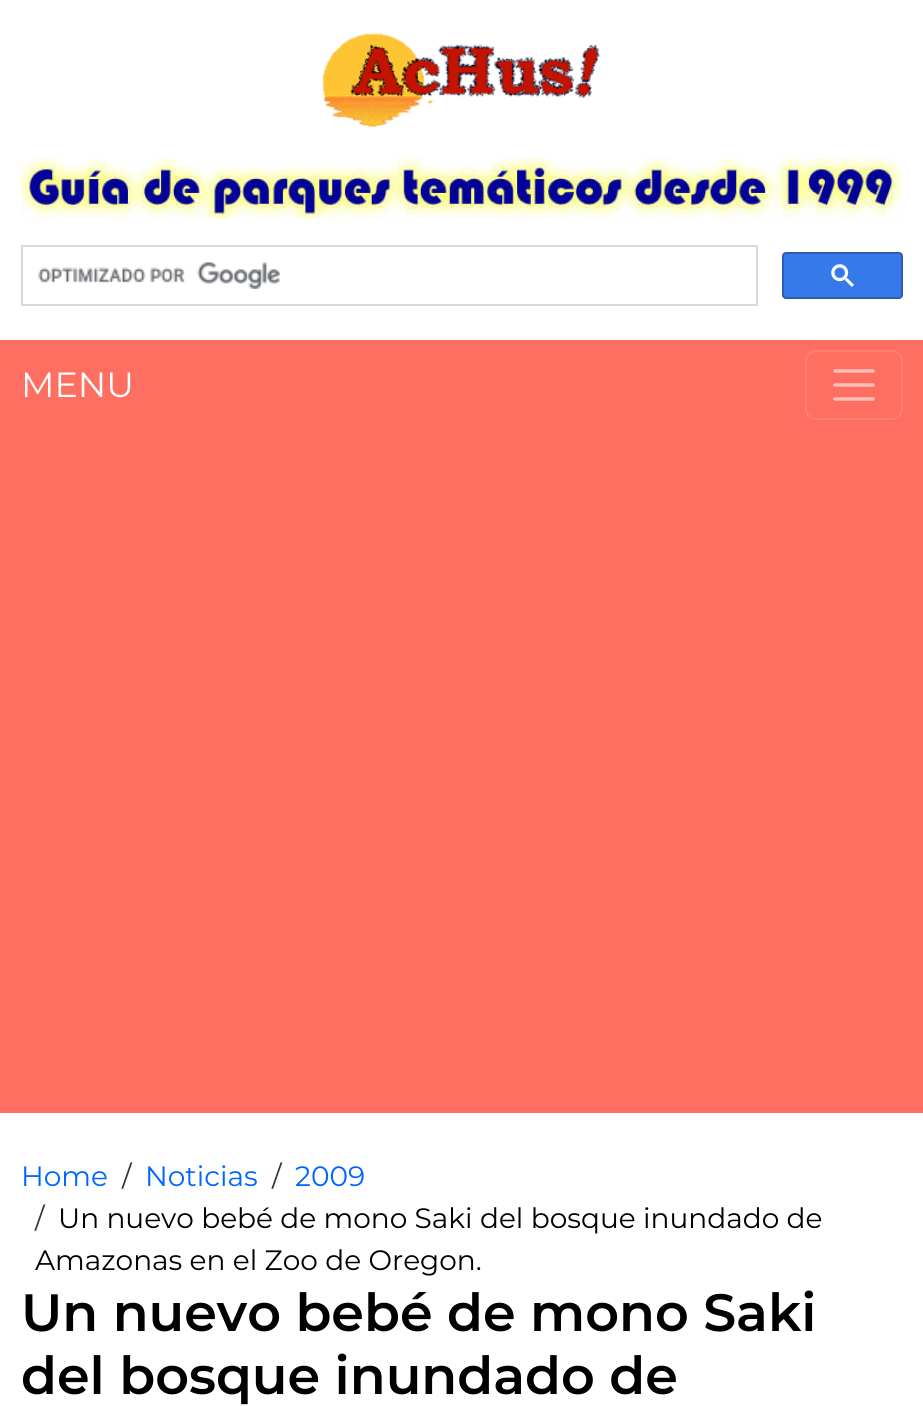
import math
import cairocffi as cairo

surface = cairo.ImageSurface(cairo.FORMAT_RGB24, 923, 1406)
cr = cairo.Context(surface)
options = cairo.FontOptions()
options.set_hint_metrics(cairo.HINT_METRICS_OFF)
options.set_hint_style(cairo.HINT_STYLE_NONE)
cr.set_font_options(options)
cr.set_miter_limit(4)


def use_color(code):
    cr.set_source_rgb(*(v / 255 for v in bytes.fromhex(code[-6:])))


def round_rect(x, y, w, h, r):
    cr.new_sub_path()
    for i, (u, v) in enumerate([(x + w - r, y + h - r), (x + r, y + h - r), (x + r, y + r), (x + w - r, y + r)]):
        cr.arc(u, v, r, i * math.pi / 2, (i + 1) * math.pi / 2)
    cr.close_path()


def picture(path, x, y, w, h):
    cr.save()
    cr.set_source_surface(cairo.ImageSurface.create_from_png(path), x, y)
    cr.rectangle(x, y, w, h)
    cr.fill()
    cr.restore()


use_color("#ffffff")
cr.paint()
picture("img1.png", 322, 33, 279, 94)
picture("img2.png", 21, 157, 882, 62)
cr.rectangle(22, 246, 735, 59)
use_color("#d9d9d9")
cr.stroke()
picture("img3.png", 38, 262, 242, 27)
use_color("#357ae8")
round_rect(783, 253, 119, 45, 3)
cr.fill_preserve()
use_color("#2f5bb7")
cr.stroke()
picture("img4.png", 831, 264, 23, 23)
use_color("#ff6f61")
cr.rectangle(0, 340, 923, 773)
cr.fill()
cr.select_font_face("Montserrat")
cr.set_font_size(35)
use_color("#ffffff")
cr.move_to(21, 397)
cr.show_text("MENU")
round_rect(806, 351, 96, 68, 10)
use_color("#ff7d71")
cr.stroke()
cr.new_path()
cr.move_to(835, 371)
cr.line_to(873, 371)
cr.move_to(835, 385)
cr.line_to(873, 385)
cr.move_to(835, 399)
cr.line_to(873, 399)
use_color("#ffbeb8")
cr.set_line_width(3.5)
cr.set_line_cap(cairo.LINE_CAP_ROUND)
cr.stroke()
cr.set_font_size(28)
use_color("#0066ff")
cr.move_to(21, 1186)
cr.show_text("Home")
use_color("#353535")
cr.move_to(122, 1186)
cr.show_text("/")
use_color("#0066ff")
cr.move_to(145, 1186)
cr.show_text("Noticias")
use_color("#353535")
cr.move_to(272, 1186)
cr.show_text("/")
use_color("#0066ff")
cr.move_to(295, 1186)
cr.show_text("2009")
use_color("#353535")
cr.move_to(35, 1228)
cr.show_text("/")
use_color("#000000")
cr.move_to(58, 1228)
cr.show_text("Un nuevo bebé de mono Saki del bosque inundado de")
cr.move_to(35, 1270)
cr.show_text("Amazonas en el Zoo de Oregon.")
cr.select_font_face("Montserrat SemiBold")
cr.set_font_size(52.4)
cr.move_to(21, 1331)
cr.show_text("Un nuevo bebé de mono Saki")
cr.move_to(21, 1394)
cr.show_text("del bosque inundado de")
surface.write_to_png("result.png")
